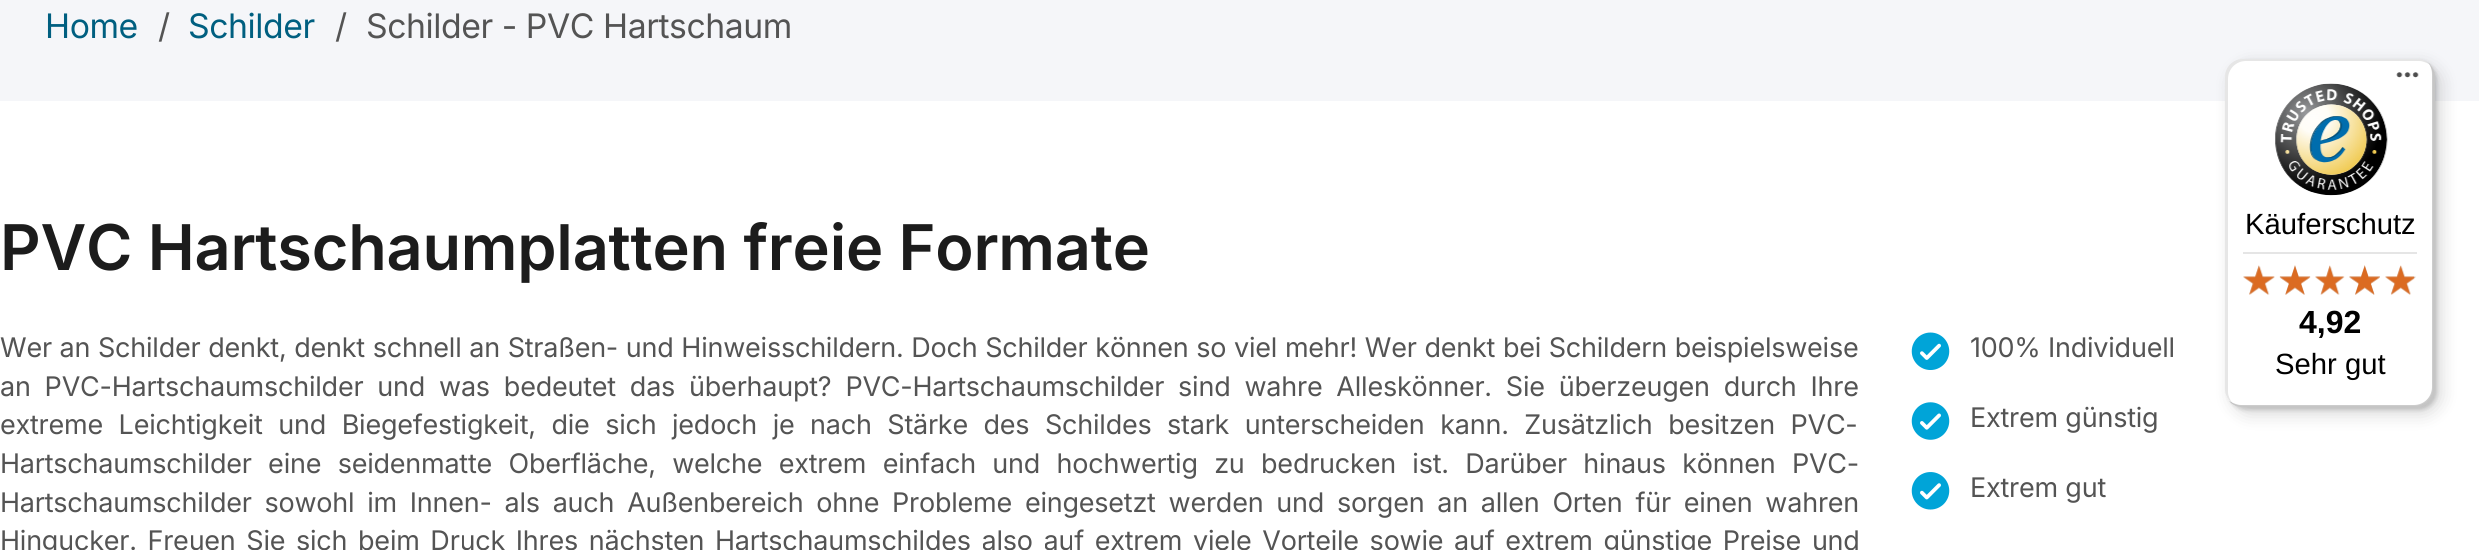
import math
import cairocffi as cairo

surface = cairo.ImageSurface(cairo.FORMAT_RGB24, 2479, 550)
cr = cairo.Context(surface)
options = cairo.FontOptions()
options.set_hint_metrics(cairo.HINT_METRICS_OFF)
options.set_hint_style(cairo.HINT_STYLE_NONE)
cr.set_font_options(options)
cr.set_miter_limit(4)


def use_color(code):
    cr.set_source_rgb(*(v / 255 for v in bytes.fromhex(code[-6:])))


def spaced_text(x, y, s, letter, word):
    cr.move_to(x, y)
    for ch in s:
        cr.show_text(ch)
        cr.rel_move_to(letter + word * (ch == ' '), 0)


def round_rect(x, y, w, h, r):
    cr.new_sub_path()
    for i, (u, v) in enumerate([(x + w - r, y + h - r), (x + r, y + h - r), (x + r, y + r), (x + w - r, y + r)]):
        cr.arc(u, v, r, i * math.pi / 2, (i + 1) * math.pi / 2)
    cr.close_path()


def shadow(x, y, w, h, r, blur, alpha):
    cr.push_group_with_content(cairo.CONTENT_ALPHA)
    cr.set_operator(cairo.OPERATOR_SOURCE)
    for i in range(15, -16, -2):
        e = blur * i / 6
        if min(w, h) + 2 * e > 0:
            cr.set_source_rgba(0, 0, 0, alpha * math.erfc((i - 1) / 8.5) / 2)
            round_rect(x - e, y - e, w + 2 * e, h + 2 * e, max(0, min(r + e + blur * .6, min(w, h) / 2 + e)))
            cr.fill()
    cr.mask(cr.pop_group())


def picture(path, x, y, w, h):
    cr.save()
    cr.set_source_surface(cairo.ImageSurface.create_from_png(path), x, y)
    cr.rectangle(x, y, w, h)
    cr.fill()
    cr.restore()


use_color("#ffffff")
cr.paint()
use_color("#f5f6f9")
cr.rectangle(0, 0, 2479, 101)
cr.fill()
cr.select_font_face("Inter")
cr.set_font_size(33.75)
use_color("#005f80")
spaced_text(45, 38, "Home", -0.45, 0)
use_color("#545454")
spaced_text(158, 38, "/", -0.45, 0)
use_color("#005f80")
spaced_text(188, 38, "Schilder", -0.45, 0)
use_color("#545454")
spaced_text(335, 38, "/", -0.45, 0)
spaced_text(366, 38, "Schilder - PVC Hartschaum", -0.45, 0)
cr.select_font_face("Inter SemiBold")
cr.set_font_size(63)
use_color("#1c1c1c")
spaced_text(0, 270, "PVC Hartschaumplatten freie Formate", -0.23, 0)
cr.select_font_face("Inter")
cr.set_font_size(27)
use_color("#545454")
spaced_text(0, 357, "Wer an Schilder denkt, denkt schnell an Straßen- und Hinweisschildern. Doch Schilder können so viel mehr! Wer denkt bei Schildern beispielsweise", -0.23, 0.4)
spaced_text(0, 396, "an PVC-Hartschaumschilder und was bedeutet das überhaupt? PVC-Hartschaumschilder sind wahre Alleskönner. Sie überzeugen durch Ihre", -0.23, 6.6)
spaced_text(0, 434, "extreme Leichtigkeit und Biegefestigkeit, die sich jedoch je nach Stärke des Schildes stark unterscheiden kann. Zusätzlich besitzen PVC-", -0.23, 8.25)
spaced_text(0, 473, "Hartschaumschilder eine seidenmatte Oberfläche, welche extrem einfach und hochwertig zu bedrucken ist. Darüber hinaus können PVC-", -0.23, 9.1)
spaced_text(0, 512, "Hartschaumschilder sowohl im Innen- als auch Außenbereich ohne Probleme eingesetzt werden und sorgen an allen Orten für einen wahren", -0.23, 5.5)
spaced_text(0, 550, "Hingucker. Freuen Sie sich beim Druck Ihres nächsten Hartschaumschildes also auf extrem viele Vorteile sowie auf extrem günstige Preise und", -0.23, 3.4)
picture("img1.png", 1911, 332, 39, 38)
spaced_text(1970, 357, "100% Individuell", -0.23, 0)
picture("img2.png", 1911, 402, 39, 38)
spaced_text(1970, 427, "Extrem günstig", -0.23, 0)
picture("img3.png", 1911, 472, 39, 38)
spaced_text(1970, 497, "Extrem gut", -0.23, 0)
use_color("#000000")
shadow(2232, 65, 209, 349, 18, 9, 0.15)
shadow(2228, 61, 209, 349, 18, 2, 0.15)
use_color("#ffffff")
round_rect(2225, 59, 210, 348, 18)
cr.fill()
cr.set_source_rgba(0, 0, 0, 0.1)
cr.new_path()
cr.move_to(2246, 61)
cr.line_to(2419, 61)
cr.curve_to(2423, 61, 2427, 63, 2431, 65)
cr.curve_to(2427, 61, 2422, 59, 2417, 59)
cr.line_to(2243, 59)
cr.curve_to(2233, 59, 2225, 67, 2225, 77)
cr.line_to(2225, 389)
cr.curve_to(2225, 395, 2228, 400, 2233, 404)
cr.curve_to(2230, 400, 2228, 396, 2228, 392)
cr.line_to(2228, 79)
cr.curve_to(2228, 69, 2236, 61, 2246, 61)
cr.close_path()
cr.fill()
cr.set_source_rgba(0, 0, 0, 0.2)
cr.new_path()
cr.move_to(2229, 401)
cr.curve_to(2233, 405, 2238, 407, 2243, 407)
cr.line_to(2417, 407)
cr.curve_to(2427, 407, 2435, 399, 2435, 389)
cr.line_to(2435, 77)
cr.curve_to(2435, 71, 2432, 66, 2428, 63)
cr.curve_to(2431, 66, 2432, 70, 2432, 74)
cr.line_to(2432, 387)
cr.curve_to(2432, 397, 2424, 405, 2414, 405)
cr.line_to(2241, 405)
cr.curve_to(2237, 405, 2233, 403, 2229, 401)
cr.close_path()
cr.fill()
cr.set_source_rgba(0.196, 0.196, 0.196, 0.2)
cr.new_path()
cr.move_to(2230, 402)
cr.curve_to(2233, 405, 2238, 407, 2243, 407)
cr.line_to(2417, 407)
cr.curve_to(2427, 407, 2435, 399, 2435, 389)
cr.line_to(2435, 77)
cr.curve_to(2435, 72, 2433, 67, 2429, 63)
cr.curve_to(2431, 67, 2433, 71, 2433, 75)
cr.line_to(2433, 388)
cr.curve_to(2433, 398, 2425, 406, 2415, 406)
cr.line_to(2242, 406)
cr.curve_to(2237, 406, 2233, 404, 2230, 402)
cr.close_path()
cr.fill()
cr.set_source_rgba(1, 1, 1, 0.3)
cr.new_path()
cr.move_to(2230, 402)
cr.curve_to(2233, 405, 2238, 407, 2243, 407)
cr.line_to(2417, 407)
cr.curve_to(2427, 407, 2435, 399, 2435, 389)
cr.line_to(2435, 77)
cr.curve_to(2435, 72, 2433, 67, 2429, 63)
cr.curve_to(2431, 67, 2433, 71, 2433, 75)
cr.line_to(2433, 388)
cr.curve_to(2433, 398, 2425, 406, 2415, 406)
cr.line_to(2242, 406)
cr.curve_to(2237, 406, 2233, 404, 2230, 402)
cr.close_path()
cr.fill()
picture("img4.png", 2396, 72, 23, 6)
picture("img5.png", 2275, 83, 113, 113)
cr.select_font_face("Liberation Sans")
cr.set_font_size(29.25)
use_color("#000000")
cr.move_to(2245, 234)
cr.show_text("Käuferschutz")
use_color("#e5e5e5")
cr.rectangle(2243, 252, 174, 2)
cr.fill()
picture("img6.png", 2243, 266, 32, 29)
picture("img7.png", 2280, 265, 30, 30)
picture("img8.png", 2315, 266, 29, 29)
picture("img9.png", 2349, 265, 31, 30)
picture("img10.png", 2385, 266, 31, 28)
picture("img11.png", 2243, 265, 32, 30)
picture("img12.png", 2279, 265, 32, 30)
picture("img13.png", 2315, 265, 30, 30)
picture("img14.png", 2349, 265, 31, 30)
picture("img15.png", 2385, 265, 30, 30)
cr.select_font_face("Liberation Sans", cairo.FONT_SLANT_NORMAL, cairo.FONT_WEIGHT_BOLD)
cr.set_font_size(32)
use_color("#000000")
cr.move_to(2299, 333)
cr.show_text("4,92")
cr.select_font_face("Liberation Sans")
cr.set_font_size(29.25)
cr.move_to(2275, 374)
cr.show_text("Sehr gut")
surface.write_to_png("result.png")
